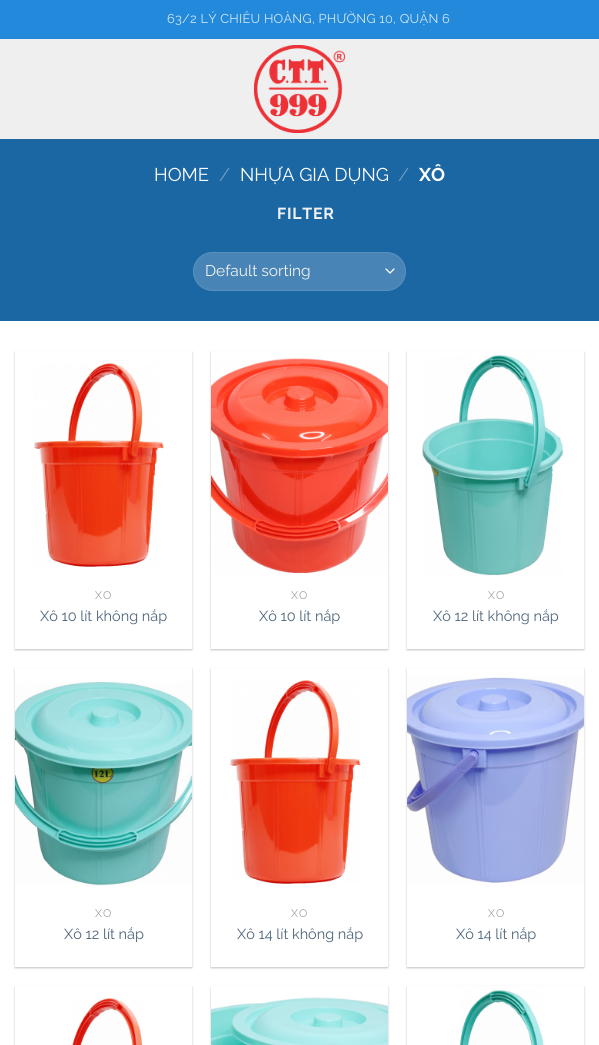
import math
import cairocffi as cairo

surface = cairo.ImageSurface(cairo.FORMAT_RGB24, 599, 1045)
cr = cairo.Context(surface)
options = cairo.FontOptions()
options.set_hint_metrics(cairo.HINT_METRICS_OFF)
options.set_hint_style(cairo.HINT_STYLE_NONE)
cr.set_font_options(options)
cr.set_miter_limit(4)


def use_color(code):
    cr.set_source_rgb(*(v / 255 for v in bytes.fromhex(code[-6:])))


def spaced_text(x, y, s, letter, word):
    cr.move_to(x, y)
    for ch in s:
        cr.show_text(ch)
        cr.rel_move_to(letter + word * (ch == ' '), 0)


def round_rect(x, y, w, h, r):
    cr.new_sub_path()
    for i, (u, v) in enumerate([(x + w - r, y + h - r), (x + r, y + h - r), (x + r, y + r), (x + w - r, y + r)]):
        cr.arc(u, v, r, i * math.pi / 2, (i + 1) * math.pi / 2)
    cr.close_path()


def shadow(x, y, w, h, r, blur, alpha):
    cr.push_group_with_content(cairo.CONTENT_ALPHA)
    cr.set_operator(cairo.OPERATOR_SOURCE)
    for i in range(15, -16, -2):
        e = blur * i / 6
        if min(w, h) + 2 * e > 0:
            cr.set_source_rgba(0, 0, 0, alpha * math.erfc((i - 1) / 8.5) / 2)
            round_rect(x - e, y - e, w + 2 * e, h + 2 * e, max(0, min(r + e + blur * .6, min(w, h) / 2 + e)))
            cr.fill()
    cr.mask(cr.pop_group())


def picture(path, x, y, w, h):
    cr.save()
    cr.set_source_surface(cairo.ImageSurface.create_from_png(path), x, y)
    cr.rectangle(x, y, w, h)
    cr.fill()
    cr.restore()


use_color("#ffffff")
cr.paint()
use_color("#2389da")
cr.rectangle(0, 0, 599, 39)
cr.fill()
cr.select_font_face("Raleway")
cr.set_font_size(12.8)
use_color("#d3e7f8")
spaced_text(167, 23, "63/2 LÝ CHIÊU HOÀNG, PHƯỜNG 10, QUẬN 6", 0.25, 0)
use_color("#efefef")
cr.rectangle(0, 39, 599, 100)
cr.fill()
picture("img1.png", 254, 45, 91, 88)
use_color("#1a67a4")
cr.rectangle(0, 139, 599, 182)
cr.fill()
use_color("#23699f")
cr.rectangle(15, 139, 569, 1)
cr.fill()
cr.set_font_size(18.5)
use_color("#ffffff")
cr.move_to(154, 181)
cr.show_text("HOME")
use_color("#6a9cc4")
cr.move_to(219, 181)
cr.show_text("/")
use_color("#ffffff")
cr.move_to(240, 181)
cr.show_text("NHỰA GIA DỤNG")
use_color("#6a9cc4")
cr.move_to(398, 181)
cr.show_text("/")
cr.select_font_face("Raleway", cairo.FONT_SLANT_NORMAL, cairo.FONT_WEIGHT_BOLD)
use_color("#ffffff")
cr.move_to(419, 181)
cr.show_text("XÔ")
cr.set_font_size(16)
use_color("#f1f1f1")
spaced_text(277, 219, "FILTER", 0.75, 0)
use_color("#4885b6")
round_rect(193, 252, 213, 39, 19.5)
cr.fill()
cr.new_path()
cr.move_to(386, 269)
cr.line_to(390, 273)
cr.line_to(394, 269)
use_color("#ffffff")
cr.set_line_width(1.3)
cr.set_line_cap(cairo.LINE_CAP_ROUND)
cr.set_line_join(cairo.LINE_JOIN_ROUND)
cr.stroke()
round_rect(193.5, 252.5, 212, 38, 19)
cr.set_source_rgba(1, 1, 1, 0.09)
cr.set_line_width(1)
cr.set_line_cap(cairo.LINE_CAP_BUTT)
cr.set_line_join(cairo.LINE_JOIN_MITER)
cr.stroke()
cr.select_font_face("Raleway")
cr.set_font_size(15.5)
use_color("#f1f1f1")
cr.move_to(205, 276)
cr.show_text("Default sorting")
cr.save()
cr.set_fill_rule(cairo.FILL_RULE_EVEN_ODD)
cr.new_path()
cr.move_to(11, 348)
cr.line_to(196, 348)
cr.line_to(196, 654)
cr.line_to(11, 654)
cr.close_path()
cr.move_to(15, 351)
cr.line_to(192, 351)
cr.line_to(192, 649)
cr.line_to(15, 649)
cr.close_path()
cr.clip()
use_color("#000000")
shadow(15, 352, 177, 298, 0, 1, 0.24)
cr.restore()
picture("img2.png", 34, 363, 130, 204)
cr.save()
cr.rectangle(25, 590, 157, 13)
cr.clip()
cr.set_font_size(11)
use_color("#a0a0a0")
spaced_text(95, 599, "XÔ", 1, 0)
cr.restore()
cr.set_font_size(14.5)
use_color("#4e657b")
cr.move_to(40, 621)
cr.show_text("Xô 10 lít không nắp")
cr.save()
cr.set_fill_rule(cairo.FILL_RULE_EVEN_ODD)
cr.new_path()
cr.move_to(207, 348)
cr.line_to(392, 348)
cr.line_to(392, 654)
cr.line_to(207, 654)
cr.close_path()
cr.move_to(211, 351)
cr.line_to(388, 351)
cr.line_to(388, 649)
cr.line_to(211, 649)
cr.close_path()
cr.clip()
use_color("#000000")
shadow(211, 352, 177, 298, 0, 1, 0.24)
cr.restore()
picture("img3.png", 211, 358, 177, 216)
cr.save()
cr.rectangle(221, 590, 157, 13)
cr.clip()
cr.set_font_size(11)
use_color("#a0a0a0")
spaced_text(291, 599, "XÔ", 1, 0)
cr.restore()
cr.move_to(259, 621)
cr.show_text("Xô 10 lít nắp")
cr.save()
cr.set_fill_rule(cairo.FILL_RULE_EVEN_ODD)
cr.new_path()
cr.move_to(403, 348)
cr.line_to(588, 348)
cr.line_to(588, 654)
cr.line_to(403, 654)
cr.close_path()
cr.move_to(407, 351)
cr.line_to(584, 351)
cr.line_to(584, 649)
cr.line_to(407, 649)
cr.close_path()
cr.clip()
use_color("#000000")
shadow(407, 352, 177, 298, 0, 1, 0.24)
cr.restore()
picture("img4.png", 422, 355, 142, 221)
cr.save()
cr.rectangle(417, 590, 157, 13)
cr.clip()
cr.set_font_size(11)
use_color("#a0a0a0")
spaced_text(488, 599, "XÔ", 1, 0)
cr.restore()
cr.move_to(433, 621)
cr.show_text("Xô 12 lít không nắp")
cr.save()
cr.set_fill_rule(cairo.FILL_RULE_EVEN_ODD)
cr.new_path()
cr.move_to(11, 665)
cr.line_to(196, 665)
cr.line_to(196, 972)
cr.line_to(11, 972)
cr.close_path()
cr.move_to(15, 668)
cr.line_to(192, 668)
cr.line_to(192, 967)
cr.line_to(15, 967)
cr.close_path()
cr.clip()
use_color("#000000")
shadow(15, 669, 177, 299, 0, 1, 0.24)
cr.restore()
picture("img5.png", 15, 681, 177, 205)
cr.save()
cr.rectangle(25, 908, 157, 13)
cr.clip()
cr.set_font_size(11)
use_color("#a0a0a0")
spaced_text(95, 917, "XÔ", 1, 0)
cr.restore()
cr.move_to(64, 939)
cr.show_text("Xô 12 lít nắp")
cr.save()
cr.set_fill_rule(cairo.FILL_RULE_EVEN_ODD)
cr.new_path()
cr.move_to(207, 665)
cr.line_to(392, 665)
cr.line_to(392, 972)
cr.line_to(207, 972)
cr.close_path()
cr.move_to(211, 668)
cr.line_to(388, 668)
cr.line_to(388, 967)
cr.line_to(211, 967)
cr.close_path()
cr.clip()
use_color("#000000")
shadow(211, 669, 177, 299, 0, 1, 0.24)
cr.restore()
picture("img6.png", 230, 680, 131, 204)
cr.save()
cr.rectangle(221, 908, 157, 13)
cr.clip()
cr.set_font_size(11)
use_color("#a0a0a0")
spaced_text(291, 917, "XÔ", 1, 0)
cr.restore()
cr.move_to(237, 939)
cr.show_text("Xô 14 lít không nắp")
cr.save()
cr.set_fill_rule(cairo.FILL_RULE_EVEN_ODD)
cr.new_path()
cr.move_to(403, 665)
cr.line_to(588, 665)
cr.line_to(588, 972)
cr.line_to(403, 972)
cr.close_path()
cr.move_to(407, 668)
cr.line_to(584, 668)
cr.line_to(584, 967)
cr.line_to(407, 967)
cr.close_path()
cr.clip()
use_color("#000000")
shadow(407, 669, 177, 299, 0, 1, 0.24)
cr.restore()
picture("img7.png", 407, 677, 177, 206)
cr.save()
cr.rectangle(417, 908, 157, 13)
cr.clip()
cr.set_font_size(11)
use_color("#a0a0a0")
spaced_text(488, 917, "XÔ", 1, 0)
cr.restore()
cr.move_to(456, 939)
cr.show_text("Xô 14 lít nắp")
cr.save()
cr.set_fill_rule(cairo.FILL_RULE_EVEN_ODD)
cr.new_path()
cr.move_to(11, 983)
cr.line_to(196, 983)
cr.line_to(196, 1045)
cr.line_to(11, 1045)
cr.close_path()
cr.move_to(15, 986)
cr.line_to(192, 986)
cr.line_to(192, 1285)
cr.line_to(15, 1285)
cr.close_path()
cr.clip()
use_color("#000000")
shadow(15, 987, 177, 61, 0, 1, 0.24)
cr.restore()
picture("img8.png", 72, 998, 71, 47)
cr.save()
cr.set_fill_rule(cairo.FILL_RULE_EVEN_ODD)
cr.new_path()
cr.move_to(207, 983)
cr.line_to(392, 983)
cr.line_to(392, 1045)
cr.line_to(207, 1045)
cr.close_path()
cr.move_to(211, 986)
cr.line_to(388, 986)
cr.line_to(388, 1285)
cr.line_to(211, 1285)
cr.close_path()
cr.clip()
use_color("#000000")
shadow(211, 987, 177, 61, 0, 1, 0.24)
cr.restore()
picture("img9.png", 211, 997, 177, 48)
cr.save()
cr.set_fill_rule(cairo.FILL_RULE_EVEN_ODD)
cr.new_path()
cr.move_to(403, 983)
cr.line_to(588, 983)
cr.line_to(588, 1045)
cr.line_to(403, 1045)
cr.close_path()
cr.move_to(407, 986)
cr.line_to(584, 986)
cr.line_to(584, 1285)
cr.line_to(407, 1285)
cr.close_path()
cr.clip()
use_color("#000000")
shadow(407, 987, 177, 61, 0, 1, 0.24)
cr.restore()
picture("img10.png", 459, 990, 85, 55)
surface.write_to_png("result.png")
